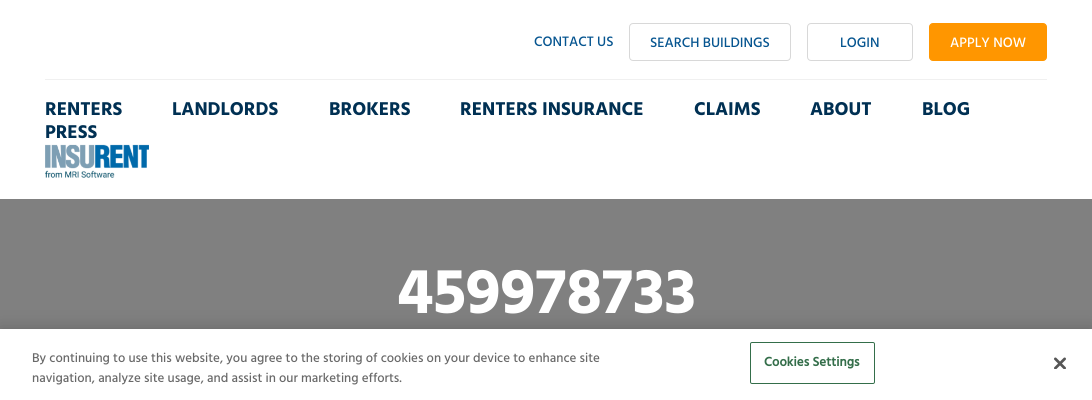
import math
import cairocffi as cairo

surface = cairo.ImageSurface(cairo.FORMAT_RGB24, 1092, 400)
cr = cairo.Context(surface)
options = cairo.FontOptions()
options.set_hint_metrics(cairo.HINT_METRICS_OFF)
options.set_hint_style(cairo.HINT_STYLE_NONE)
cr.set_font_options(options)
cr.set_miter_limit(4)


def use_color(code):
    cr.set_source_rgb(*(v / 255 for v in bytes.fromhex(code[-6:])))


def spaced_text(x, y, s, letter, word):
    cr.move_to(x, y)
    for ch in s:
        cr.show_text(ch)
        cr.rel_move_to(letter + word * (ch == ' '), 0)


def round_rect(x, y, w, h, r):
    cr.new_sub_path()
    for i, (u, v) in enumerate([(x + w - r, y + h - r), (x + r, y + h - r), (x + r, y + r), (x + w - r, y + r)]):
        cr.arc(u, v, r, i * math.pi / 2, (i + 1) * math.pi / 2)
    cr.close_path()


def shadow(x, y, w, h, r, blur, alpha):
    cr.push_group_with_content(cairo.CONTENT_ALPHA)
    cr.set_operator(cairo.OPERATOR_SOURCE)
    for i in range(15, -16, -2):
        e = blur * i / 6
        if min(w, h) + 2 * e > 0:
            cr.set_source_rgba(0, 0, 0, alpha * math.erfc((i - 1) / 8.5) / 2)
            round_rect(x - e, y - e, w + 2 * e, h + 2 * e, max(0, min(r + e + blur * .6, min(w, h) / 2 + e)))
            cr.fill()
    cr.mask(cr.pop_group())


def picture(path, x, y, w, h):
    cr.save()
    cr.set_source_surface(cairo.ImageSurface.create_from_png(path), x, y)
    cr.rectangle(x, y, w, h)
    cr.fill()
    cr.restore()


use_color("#808080")
cr.paint()
use_color("#ffffff")
cr.rectangle(0, 0, 1092, 199)
cr.fill()
use_color("#f0f0f0")
cr.rectangle(45, 79, 1002, 1)
cr.fill()
cr.select_font_face("Hind Medium")
cr.set_font_size(14)
use_color("#065590")
cr.move_to(534, 46)
cr.show_text("CONTACT US")
round_rect(629.5, 23.5, 161, 37, 3.5)
use_color("#d8d8d8")
cr.set_line_width(1)
cr.stroke()
use_color("#065590")
cr.move_to(650, 47)
cr.show_text("SEARCH BUILDINGS")
round_rect(807.5, 23.5, 105, 37, 3.5)
use_color("#d8d8d8")
cr.stroke()
use_color("#065590")
cr.move_to(840, 47)
cr.show_text("LOGIN")
use_color("#ff9600")
round_rect(929.5, 23.5, 117, 37, 3.5)
cr.fill_preserve()
cr.stroke()
use_color("#ffffff")
cr.move_to(950, 47)
cr.show_text("APPLY NOW")
cr.select_font_face("Hind", cairo.FONT_SLANT_NORMAL, cairo.FONT_WEIGHT_BOLD)
cr.set_font_size(19)
use_color("#003053")
cr.move_to(45, 115)
cr.show_text("RENTERS")
cr.move_to(172, 115)
cr.show_text("LANDLORDS")
cr.move_to(329, 115)
cr.show_text("BROKERS")
cr.move_to(460, 115)
cr.show_text("RENTERS INSURANCE")
cr.move_to(694, 115)
cr.show_text("CLAIMS")
cr.move_to(810, 115)
cr.show_text("ABOUT")
cr.move_to(922, 115)
cr.show_text("BLOG")
cr.move_to(45, 138)
cr.show_text("PRESS")
picture("img1.png", 45, 144, 104, 34)
cr.set_font_size(65)
use_color("#ffffff")
cr.move_to(397, 313)
cr.show_text("459978733")
use_color("#000000")
shadow(0, 329, 1092, 71, 0, 9, 0.2)
use_color("#ffffff")
cr.rectangle(0, 329, 1092, 71)
cr.fill()
cr.select_font_face("Hind Medium")
cr.set_font_size(13)
use_color("#696969")
cr.move_to(32, 362)
cr.show_text("By continuing to use this website, you agree to the storing of cookies on your device to enhance site")
cr.move_to(32, 382)
cr.show_text("navigation, analyze site usage, and assist in our marketing efforts.")
round_rect(750.5, 342.5, 124, 41, 1.5)
use_color("#346e4a")
cr.stroke()
cr.select_font_face("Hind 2", cairo.FONT_SLANT_NORMAL, cairo.FONT_WEIGHT_BOLD)
spaced_text(764, 366, "Cookies Settings", 0.1, 0)
picture("img2.png", 1054, 357, 12, 12)
surface.write_to_png("result.png")
